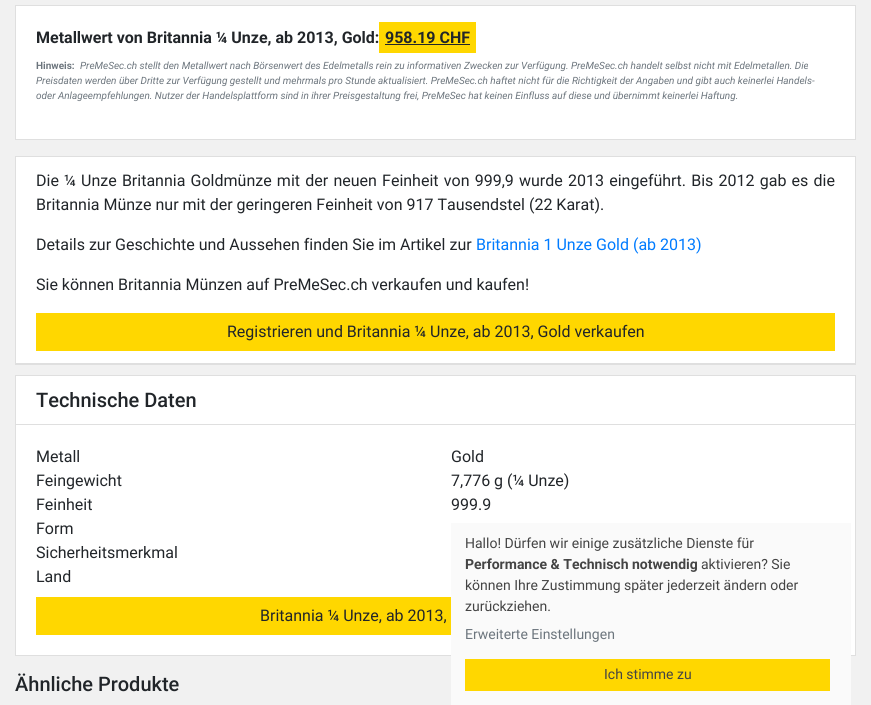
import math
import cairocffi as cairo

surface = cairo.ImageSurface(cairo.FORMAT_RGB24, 871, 705)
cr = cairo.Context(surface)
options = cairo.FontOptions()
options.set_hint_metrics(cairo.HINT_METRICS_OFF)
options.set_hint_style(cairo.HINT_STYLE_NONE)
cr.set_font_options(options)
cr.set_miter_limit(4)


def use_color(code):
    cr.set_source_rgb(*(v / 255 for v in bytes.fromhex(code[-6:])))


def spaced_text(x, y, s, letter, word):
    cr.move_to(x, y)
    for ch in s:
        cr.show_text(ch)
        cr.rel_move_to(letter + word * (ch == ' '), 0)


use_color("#f1f1f1")
cr.paint()
use_color("#ffffff")
cr.rectangle(15.5, 5.5, 840, 134)
cr.fill_preserve()
use_color("#dfdfdf")
cr.set_line_width(1)
cr.stroke()
cr.select_font_face("Roboto", cairo.FONT_SLANT_NORMAL, cairo.FONT_WEIGHT_BOLD)
cr.set_font_size(16)
use_color("#212529")
cr.move_to(36, 43)
cr.show_text("Metallwert von Britannia ¼ Unze, ab 2013, Gold:")
use_color("#ffd700")
cr.rectangle(379, 22, 97, 31)
cr.fill()
use_color("#212529")
cr.move_to(385, 43)
cr.show_text("958.19 CHF")
cr.rectangle(385, 44, 85, 1)
cr.fill()
cr.set_font_size(10)
use_color("#6c757d")
cr.move_to(36, 69)
cr.show_text("Hinweis:")
cr.select_font_face("Roboto", cairo.FONT_SLANT_ITALIC)
cr.move_to(80, 69)
cr.show_text("PreMeSec.ch stellt den Metallwert nach Börsenwert des Edelmetalls rein zu informativen Zwecken zur Verfügung. PreMeSec.ch handelt selbst nicht mit Edelmetallen. Die")
cr.move_to(36, 84)
cr.show_text("Preisdaten werden über Dritte zur Verfügung gestellt und mehrmals pro Stunde aktualisiert. PreMeSec.ch haftet nicht für die Richtigkeit der Angaben und gibt auch keinerlei Handels-")
cr.move_to(36, 99)
cr.show_text("oder Anlageempfehlungen. Nutzer der Handelsplattform sind in ihrer Preisgestaltung frei, PreMeSec hat keinen Einfluss auf diese und übernimmt keinerlei Haftung.")
use_color("#ffffff")
cr.rectangle(16, 157, 839, 206)
cr.fill()
cr.rectangle(15.5, 156.5, 840, 208)
use_color("#dfdfdf")
cr.stroke()
cr.rectangle(16, 363, 839, 1)
cr.fill()
cr.select_font_face("Roboto")
cr.set_font_size(16)
use_color("#212529")
spaced_text(36, 186, "Die ¼ Unze Britannia Goldmünze mit der neuen Feinheit von 999,9 wurde 2013 eingeführt. Bis 2012 gab es die", 0, 1.25)
cr.move_to(36, 210)
cr.show_text("Britannia Münze nur mit der geringeren Feinheit von 917 Tausendstel (22 Karat).")
cr.move_to(36, 250)
cr.show_text("Details zur Geschichte und Aussehen finden Sie im Artikel zur")
use_color("#007bff")
cr.move_to(476, 250)
cr.show_text("Britannia 1 Unze Gold (ab 2013)")
use_color("#212529")
cr.move_to(36, 290)
cr.show_text("Sie können Britannia Münzen auf PreMeSec.ch verkaufen und kaufen!")
use_color("#ffd700")
cr.rectangle(36, 313, 799, 38)
cr.fill()
use_color("#212529")
cr.move_to(227, 337)
cr.show_text("Registrieren und Britannia ¼ Unze, ab 2013, Gold verkaufen")
use_color("#ffffff")
cr.rectangle(15.5, 375.5, 840, 280)
cr.fill_preserve()
use_color("#dfdfdf")
cr.stroke()
cr.rectangle(16, 424, 839, 1)
cr.fill()
cr.select_font_face("Roboto Medium")
cr.set_font_size(20)
use_color("#212529")
cr.move_to(36, 407)
cr.show_text("Technische Daten")
cr.select_font_face("Roboto")
cr.set_font_size(16)
cr.move_to(36, 462)
cr.show_text("Metall")
cr.move_to(451, 462)
cr.show_text("Gold")
cr.move_to(36, 486)
cr.show_text("Feingewicht")
cr.move_to(451, 486)
cr.show_text("7,776 g (¼ Unze)")
cr.move_to(36, 510)
cr.show_text("Feinheit")
cr.move_to(451, 510)
cr.show_text("999.9")
cr.move_to(36, 534)
cr.show_text("Form")
cr.move_to(36, 558)
cr.show_text("Sicherheitsmerkmal")
cr.move_to(36, 582)
cr.show_text("Land")
use_color("#ffd700")
cr.rectangle(36, 597, 415, 38)
cr.fill()
use_color("#212529")
cr.move_to(260, 621)
cr.show_text("Britannia ¼ Unze, ab 2013,")
cr.select_font_face("Roboto Medium")
cr.set_font_size(20)
cr.move_to(15, 691)
cr.show_text("Ähnliche Produkte")
use_color("#fafafa")
cr.rectangle(451, 523, 400, 182)
cr.fill()
cr.select_font_face("Roboto")
cr.set_font_size(14)
use_color("#444444")
cr.move_to(465, 548)
cr.show_text("Hallo! Dürfen wir einige zusätzliche Dienste für")
cr.select_font_face("Roboto", cairo.FONT_SLANT_NORMAL, cairo.FONT_WEIGHT_BOLD)
cr.move_to(465, 569)
cr.show_text("Performance & Technisch notwendig")
cr.select_font_face("Roboto")
cr.move_to(701, 569)
cr.show_text("aktivieren? Sie")
cr.move_to(465, 590)
cr.show_text("können Ihre Zustimmung später jederzeit ändern oder")
cr.move_to(465, 611)
cr.show_text("zurückziehen.")
use_color("#6c757d")
cr.move_to(465, 639)
cr.show_text("Erweiterte Einstellungen")
use_color("#ffd700")
cr.rectangle(465, 659, 365, 32)
cr.fill()
use_color("#444444")
cr.move_to(604, 679)
cr.show_text("Ich stimme zu")
surface.write_to_png("result.png")
